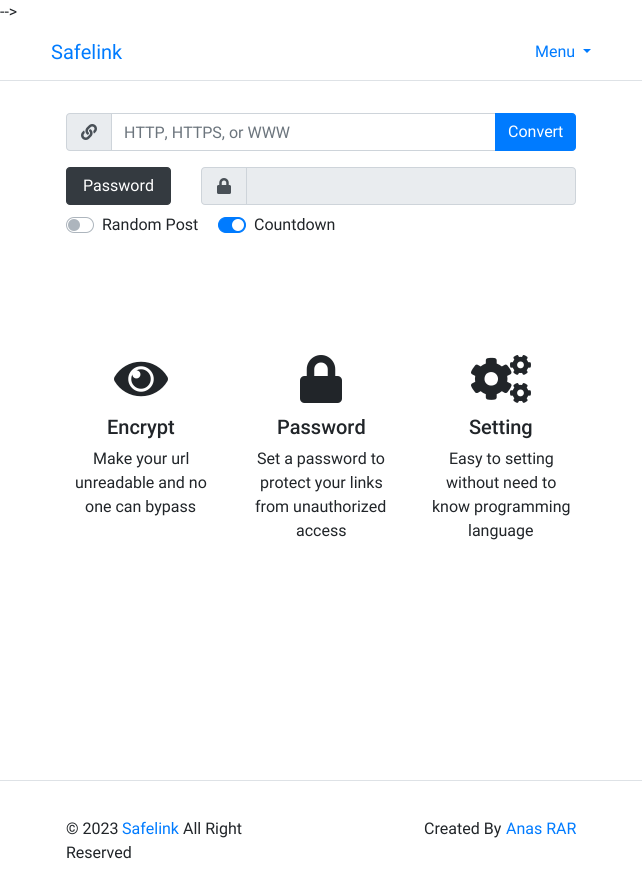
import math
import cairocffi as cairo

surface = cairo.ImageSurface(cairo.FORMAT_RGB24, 642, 876)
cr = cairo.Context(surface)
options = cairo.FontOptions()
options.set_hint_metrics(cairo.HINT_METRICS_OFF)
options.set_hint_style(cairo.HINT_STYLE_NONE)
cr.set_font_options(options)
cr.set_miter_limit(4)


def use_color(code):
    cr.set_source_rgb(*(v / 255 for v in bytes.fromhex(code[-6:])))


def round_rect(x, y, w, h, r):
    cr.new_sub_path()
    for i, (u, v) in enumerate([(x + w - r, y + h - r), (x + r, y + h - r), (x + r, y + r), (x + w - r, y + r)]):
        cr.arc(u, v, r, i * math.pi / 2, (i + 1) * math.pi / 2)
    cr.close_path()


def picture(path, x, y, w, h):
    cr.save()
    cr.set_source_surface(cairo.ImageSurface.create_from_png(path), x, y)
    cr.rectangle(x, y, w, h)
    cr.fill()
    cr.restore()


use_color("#ffffff")
cr.paint()
cr.select_font_face("Roboto")
cr.set_font_size(16)
use_color("#212529")
cr.move_to(0, 17)
cr.show_text("-->")
use_color("#dee2e6")
cr.rectangle(0, 80, 642, 1)
cr.fill()
cr.set_font_size(20)
use_color("#007bff")
cr.move_to(51, 59)
cr.show_text("Safelink")
cr.set_font_size(16)
cr.move_to(535, 57)
cr.show_text("Menu")
cr.new_path()
cr.move_to(583, 49)
cr.line_to(591, 49)
cr.line_to(587, 53)
cr.close_path()
cr.fill()
use_color("#e9ecef")
cr.new_path()
cr.move_to(70, 113.5)
cr.line_to(111.5, 113.5)
cr.line_to(111.5, 150.5)
cr.line_to(70, 150.5)
cr.curve_to(68, 150.5, 66.5, 149, 66.5, 147)
cr.line_to(66.5, 117)
cr.curve_to(66.5, 115, 68, 113.5, 70, 113.5)
cr.close_path()
cr.fill_preserve()
use_color("#ced4da")
cr.set_line_width(1)
cr.stroke()
picture("img1.png", 81, 124, 16, 16)
cr.rectangle(111.5, 113.5, 384, 37)
cr.stroke()
use_color("#6c757d")
cr.move_to(124, 138)
cr.show_text("HTTP, HTTPS, or WWW")
use_color("#007bff")
cr.new_path()
cr.move_to(495.5, 113.5)
cr.line_to(572, 113.5)
cr.curve_to(574, 113.5, 575.5, 115, 575.5, 117)
cr.line_to(575.5, 147)
cr.curve_to(575.5, 149, 574, 150.5, 572, 150.5)
cr.line_to(495.5, 150.5)
cr.close_path()
cr.fill_preserve()
cr.stroke()
use_color("#ffffff")
cr.move_to(508, 137)
cr.show_text("Convert")
use_color("#343a40")
round_rect(66.5, 167.5, 104, 37, 3.5)
cr.fill_preserve()
cr.stroke()
use_color("#ffffff")
cr.move_to(83, 191)
cr.show_text("Password")
use_color("#e9ecef")
cr.new_path()
cr.move_to(205, 167.5)
cr.line_to(246.5, 167.5)
cr.line_to(246.5, 204.5)
cr.line_to(205, 204.5)
cr.curve_to(203, 204.5, 201.5, 203, 201.5, 201)
cr.line_to(201.5, 171)
cr.curve_to(201.5, 169, 203, 167.5, 205, 167.5)
cr.close_path()
cr.fill_preserve()
use_color("#ced4da")
cr.stroke()
picture("img2.png", 217, 178, 14, 16)
use_color("#e9ecef")
cr.new_path()
cr.move_to(246.5, 167.5)
cr.line_to(572, 167.5)
cr.curve_to(574, 167.5, 575.5, 169, 575.5, 171)
cr.line_to(575.5, 201)
cr.curve_to(575.5, 203, 574, 204.5, 572, 204.5)
cr.line_to(246.5, 204.5)
cr.close_path()
cr.fill_preserve()
use_color("#ced4da")
cr.stroke()
round_rect(66.5, 217.5, 27, 15, 7.5)
use_color("#adb5bd")
cr.stroke()
use_color("#212529")
cr.move_to(102, 230)
cr.show_text("Random Post")
use_color("#adb5bd")
cr.new_path()
cr.arc(74, 225, 6, 0, 2 * math.pi)
cr.fill()
use_color("#007bff")
round_rect(218.5, 217.5, 27, 15, 7.5)
cr.fill_preserve()
cr.stroke()
use_color("#212529")
cr.move_to(254, 230)
cr.show_text("Countdown")
use_color("#ffffff")
cr.new_path()
cr.arc(238, 225, 6, 0, 2 * math.pi)
cr.fill()
picture("img3.png", 114, 361, 54, 36)
cr.select_font_face("Roboto Medium")
cr.set_font_size(20)
use_color("#212529")
cr.move_to(107, 434)
cr.show_text("Encrypt")
cr.select_font_face("Roboto")
cr.set_font_size(16)
cr.move_to(93, 464)
cr.show_text("Make your url")
cr.move_to(75, 488)
cr.show_text("unreadable and no")
cr.move_to(85, 512)
cr.show_text("one can bypass")
picture("img4.png", 300, 355, 42, 48)
cr.select_font_face("Roboto Medium")
cr.set_font_size(20)
cr.move_to(277, 434)
cr.show_text("Password")
cr.select_font_face("Roboto")
cr.set_font_size(16)
cr.move_to(257, 464)
cr.show_text("Set a password to")
cr.move_to(260, 488)
cr.show_text("protect your links")
cr.move_to(255, 512)
cr.show_text("from unauthorized")
cr.move_to(296, 536)
cr.show_text("access")
picture("img5.png", 471, 355, 60, 48)
cr.select_font_face("Roboto Medium")
cr.set_font_size(20)
cr.move_to(469, 434)
cr.show_text("Setting")
cr.select_font_face("Roboto")
cr.set_font_size(16)
cr.move_to(449, 464)
cr.show_text("Easy to setting")
cr.move_to(446, 488)
cr.show_text("without need to")
cr.move_to(432, 512)
cr.show_text("know programming")
cr.move_to(468, 536)
cr.show_text("language")
use_color("#dee2e6")
cr.rectangle(0, 780, 642, 1)
cr.fill()
use_color("#212529")
cr.move_to(66, 834)
cr.show_text("© 2023")
use_color("#007bff")
cr.move_to(122, 834)
cr.show_text("Safelink")
use_color("#212529")
cr.move_to(183, 834)
cr.show_text("All Right")
cr.move_to(66, 858)
cr.show_text("Reserved")
cr.move_to(424, 834)
cr.show_text("Created By")
use_color("#007bff")
cr.move_to(506, 834)
cr.show_text("Anas RAR")
surface.write_to_png("result.png")
